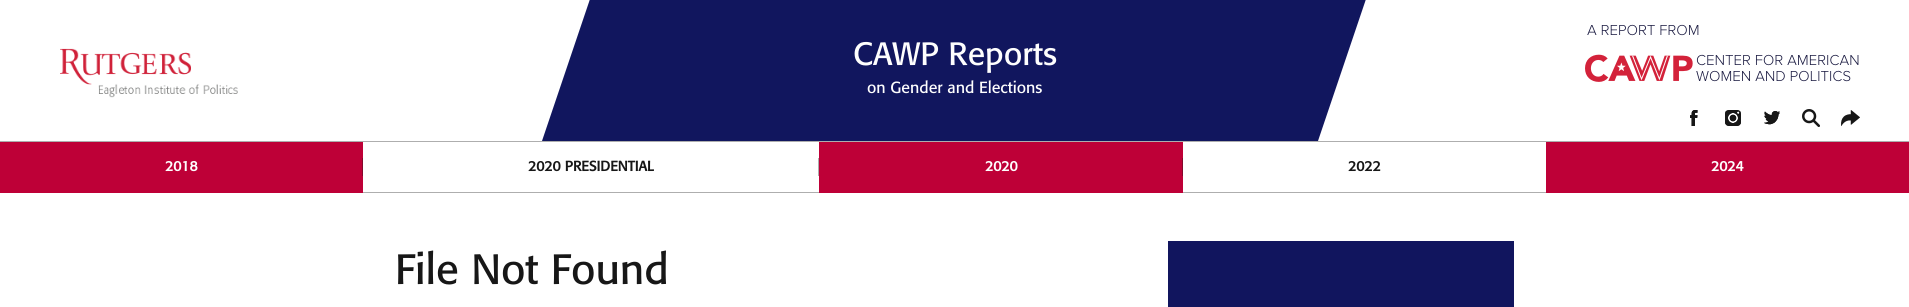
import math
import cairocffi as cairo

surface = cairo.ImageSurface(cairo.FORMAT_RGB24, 1909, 307)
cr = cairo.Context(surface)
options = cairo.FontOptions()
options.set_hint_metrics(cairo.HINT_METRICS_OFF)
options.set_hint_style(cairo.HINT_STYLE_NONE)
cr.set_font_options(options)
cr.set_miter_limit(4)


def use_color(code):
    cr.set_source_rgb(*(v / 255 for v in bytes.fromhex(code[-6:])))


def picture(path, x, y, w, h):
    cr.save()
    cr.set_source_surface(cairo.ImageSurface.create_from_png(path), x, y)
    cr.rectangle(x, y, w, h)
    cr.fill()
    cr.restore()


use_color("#ffffff")
cr.paint()
picture("img1.png", 60, 48, 178, 50)
cr.save()
cr.rectangle(497, 0, 915, 141)
cr.clip()
use_color("#11165e")
cr.set_fill_rule(cairo.FILL_RULE_EVEN_ODD)
cr.new_path()
cr.move_to(634, -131)
cr.line_to(1410, -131)
cr.line_to(1274, 271)
cr.line_to(498, 271)
cr.close_path()
cr.fill()
cr.restore()
cr.select_font_face("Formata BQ")
cr.set_font_size(32)
use_color("#fefefe")
cr.move_to(853, 65)
cr.show_text("CAWP Reports")
cr.set_font_size(16)
cr.move_to(867, 93)
cr.show_text("on Gender and Elections")
picture("img2.png", 1585, 24, 274, 58)
picture("img3.png", 1690, 110, 8, 16)
picture("img4.png", 1725, 110, 16, 16)
picture("img5.png", 1764, 111, 16, 14)
picture("img6.png", 1802, 109, 18, 18)
picture("img7.png", 1841, 110, 19, 16)
use_color("#aeaeae")
cr.rectangle(0, 141, 1909, 1)
cr.fill()
cr.rectangle(363, 192, 1183, 1)
cr.fill()
use_color("#be0037")
cr.rectangle(0, 142, 363, 51)
cr.fill()
cr.select_font_face("Formata BQ", cairo.FONT_SLANT_NORMAL, cairo.FONT_WEIGHT_BOLD)
cr.set_font_size(14)
use_color("#fefefe")
cr.move_to(165, 171)
cr.show_text("2018")
use_color("#84082c")
cr.rectangle(362, 158, 1, 18)
cr.fill()
use_color("#171717")
cr.move_to(528, 171)
cr.show_text("2020 PRESIDENTIAL")
use_color("#aeaeae")
cr.rectangle(818, 158, 1, 18)
cr.fill()
use_color("#be0037")
cr.rectangle(819, 142, 364, 51)
cr.fill()
use_color("#fefefe")
cr.move_to(985, 171)
cr.show_text("2020")
use_color("#84082c")
cr.rectangle(1182, 158, 1, 18)
cr.fill()
use_color("#171717")
cr.move_to(1348, 171)
cr.show_text("2022")
use_color("#be0037")
cr.rectangle(1546, 142, 363, 51)
cr.fill()
use_color("#fefefe")
cr.move_to(1711, 171)
cr.show_text("2024")
cr.select_font_face("Formata BQ")
cr.set_font_size(42)
use_color("#171717")
cr.move_to(395, 284)
cr.show_text("File Not Found")
use_color("#11155e")
cr.rectangle(1168, 241, 346, 66)
cr.fill()
surface.write_to_png("result.png")
